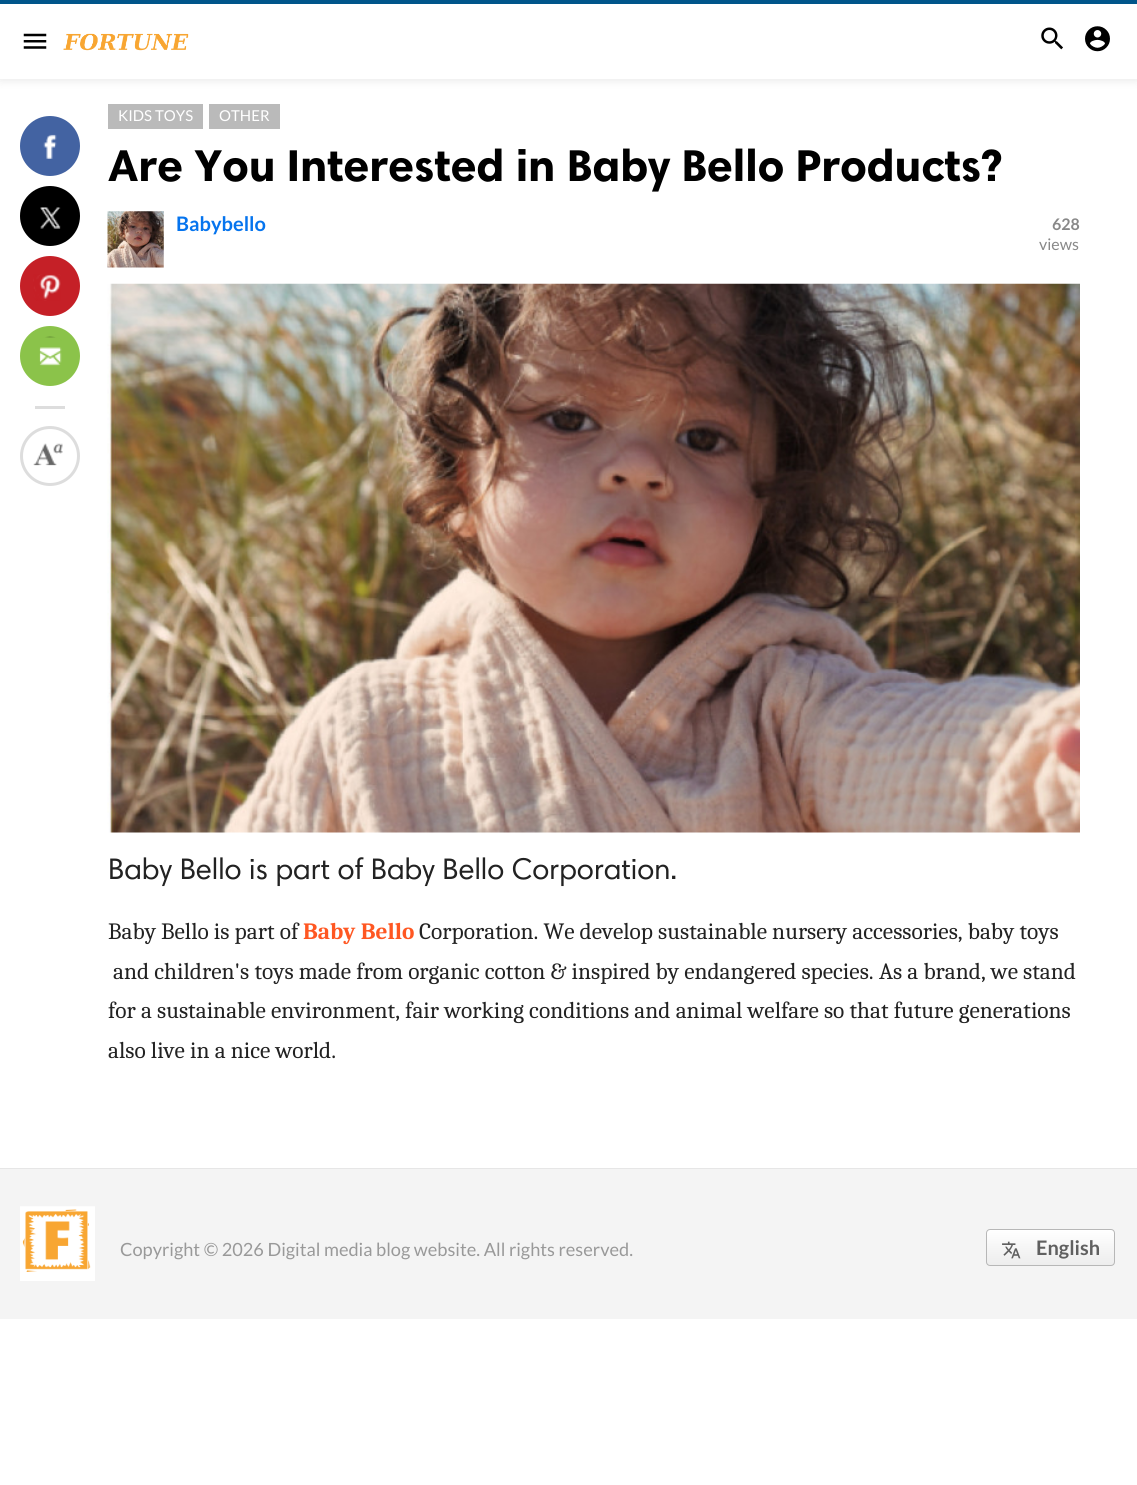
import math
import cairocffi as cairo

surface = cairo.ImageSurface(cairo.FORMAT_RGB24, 1137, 1485)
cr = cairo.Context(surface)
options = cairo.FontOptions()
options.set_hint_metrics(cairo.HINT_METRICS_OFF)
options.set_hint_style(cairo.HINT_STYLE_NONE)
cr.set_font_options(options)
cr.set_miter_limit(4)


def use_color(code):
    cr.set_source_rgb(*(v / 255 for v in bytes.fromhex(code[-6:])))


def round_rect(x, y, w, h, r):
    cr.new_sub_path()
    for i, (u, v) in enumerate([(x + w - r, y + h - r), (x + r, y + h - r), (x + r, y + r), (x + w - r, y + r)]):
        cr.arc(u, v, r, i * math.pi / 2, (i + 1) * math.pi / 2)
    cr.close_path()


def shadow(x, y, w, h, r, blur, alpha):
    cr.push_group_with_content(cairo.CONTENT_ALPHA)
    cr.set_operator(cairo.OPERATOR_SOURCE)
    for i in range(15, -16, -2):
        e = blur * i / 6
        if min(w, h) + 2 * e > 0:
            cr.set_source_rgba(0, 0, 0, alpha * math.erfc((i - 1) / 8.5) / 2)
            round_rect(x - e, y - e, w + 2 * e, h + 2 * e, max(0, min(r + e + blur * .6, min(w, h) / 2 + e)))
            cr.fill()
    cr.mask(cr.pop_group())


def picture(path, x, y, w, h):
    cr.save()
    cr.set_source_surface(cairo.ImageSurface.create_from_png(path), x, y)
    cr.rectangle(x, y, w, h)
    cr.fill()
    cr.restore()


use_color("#ffffff")
cr.paint()
use_color("#000000")
shadow(0, 1, 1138, 79, 0, 5, 0.1)
use_color("#ffffff")
cr.rectangle(0, 4, 1137, 75)
cr.fill()
use_color("#00558a")
cr.rectangle(0, 0, 1137, 4)
cr.fill()
picture("img1.png", 23, 33, 24, 16)
picture("img2.png", 63, 33, 126, 18)
picture("img3.png", 1041, 27, 22, 23)
picture("img4.png", 1085, 26, 25, 26)
use_color("#4363a2")
cr.arc(50, 146, 30, 0, 2 * math.pi)
cr.fill()
picture("img5.png", 43, 134, 14, 25)
use_color("#000000")
cr.arc(50, 216, 30, 0, 2 * math.pi)
cr.fill()
picture("img6.png", 40, 207, 21, 22)
use_color("#c52027")
cr.arc(50, 286, 30, 0, 2 * math.pi)
cr.fill()
picture("img7.png", 33, 274, 28, 27)
use_color("#8bc34a")
cr.arc(50, 356, 30, 0, 2 * math.pi)
cr.fill()
picture("img8.png", 39, 336, 23, 30)
use_color("#dddddd")
cr.rectangle(35, 406, 30, 3)
cr.fill()
cr.arc(50, 456, 28.5, 0, 2 * math.pi)
cr.set_line_width(3)
cr.stroke()
picture("img9.png", 33, 443, 30, 23)
use_color("#bababa")
cr.rectangle(108, 104, 95, 25)
cr.fill()
cr.select_font_face("Lato")
cr.set_font_size(15)
use_color("#ffffff")
cr.move_to(118, 121)
cr.show_text("KIDS TOYS")
use_color("#bababa")
cr.rectangle(209, 104, 71, 25)
cr.fill()
use_color("#ffffff")
cr.move_to(219, 121)
cr.show_text("OTHER")
cr.select_font_face("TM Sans", cairo.FONT_SLANT_NORMAL, cairo.FONT_WEIGHT_BOLD)
cr.set_font_size(45)
use_color("#000000")
cr.move_to(108, 181)
cr.show_text("Are You Interested in Baby Bello Products?")
picture("img10.png", 107, 211, 57, 57)
cr.select_font_face("Lato", cairo.FONT_SLANT_NORMAL, cairo.FONT_WEIGHT_BOLD)
cr.set_font_size(20)
use_color("#0574ee")
cr.move_to(176, 231)
cr.show_text("Babybello")
cr.set_font_size(16)
use_color("#888888")
cr.move_to(1052, 230)
cr.show_text("628")
cr.select_font_face("Lato")
cr.move_to(1039, 250)
cr.show_text("views")
picture("img11.png", 107, 283, 973, 550)
cr.select_font_face("TM Sans")
cr.set_font_size(30)
use_color("#222222")
cr.move_to(108, 879)
cr.show_text("Baby Bello is part of Baby Bello Corporation.")
cr.select_font_face("Caladea")
cr.set_font_size(23.35)
cr.move_to(108, 939)
cr.show_text("Baby Bello is part of")
cr.select_font_face("Caladea", cairo.FONT_SLANT_NORMAL, cairo.FONT_WEIGHT_BOLD)
use_color("#ff5722")
cr.move_to(303, 939)
cr.show_text("Baby Bello")
cr.select_font_face("Caladea")
use_color("#222222")
cr.move_to(419, 939)
cr.show_text("Corporation. We develop sustainable nursery accessories, baby toys")
cr.move_to(113, 979)
cr.show_text("and children's toys made from organic cotton & inspired by endangered species.")
cr.move_to(879, 979)
cr.show_text("As a brand, we stand")
cr.move_to(108, 1018)
cr.show_text("for a sustainable environment, fair working conditions and animal welfare so that future generations")
cr.move_to(108, 1058)
cr.show_text("also live in a nice world.")
use_color("#f4f4f4")
cr.rectangle(0, 1169, 1137, 150)
cr.fill()
use_color("#e6e6e6")
cr.rectangle(0, 1168, 1137, 1)
cr.fill()
picture("img12.png", 20, 1206, 75, 75)
cr.select_font_face("Lato")
cr.set_font_size(18.2)
use_color("#999999")
cr.move_to(120, 1256)
cr.show_text("Copyright © 2026 Digital media blog website. All rights reserved.")
cr.save()
round_rect(986, 1229, 129, 37, 4)
cr.clip()
gradient = cairo.LinearGradient(1051, 1230, 1051, 1265)
gradient.add_color_stop_rgba(0, 1, 1, 1, 1)
gradient.add_color_stop_rgba(1, 0.929, 0.929, 0.929, 1)
cr.set_source(gradient)
cr.rectangle(986, 1230, 129, 35)
cr.fill()
cr.restore()
round_rect(986.5, 1229.5, 128, 36, 3.5)
use_color("#b7b7b7")
cr.set_line_width(1)
cr.stroke()
picture("img13.png", 1002, 1241, 19, 18)
cr.select_font_face("Lato", cairo.FONT_SLANT_NORMAL, cairo.FONT_WEIGHT_BOLD)
cr.set_font_size(20)
use_color("#606060")
cr.move_to(1036, 1255)
cr.show_text("English")
surface.write_to_png("result.png")
